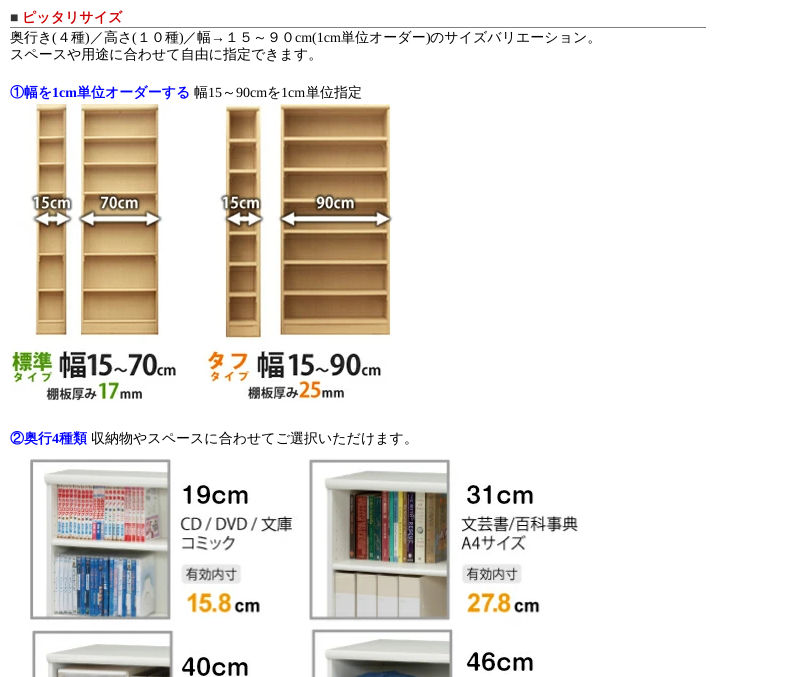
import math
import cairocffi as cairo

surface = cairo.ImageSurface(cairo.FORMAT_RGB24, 812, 677)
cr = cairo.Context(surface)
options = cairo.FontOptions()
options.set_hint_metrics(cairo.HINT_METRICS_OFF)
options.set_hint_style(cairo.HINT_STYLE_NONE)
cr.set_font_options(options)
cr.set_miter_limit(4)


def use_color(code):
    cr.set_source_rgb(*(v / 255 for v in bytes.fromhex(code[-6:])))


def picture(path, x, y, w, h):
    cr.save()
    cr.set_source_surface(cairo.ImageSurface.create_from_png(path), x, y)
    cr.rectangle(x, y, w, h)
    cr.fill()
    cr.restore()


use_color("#ffffff")
cr.paint()
use_color("#808080")
cr.rectangle(10, 27, 696, 1)
cr.fill()
cr.select_font_face("Liberation Serif")
cr.set_font_size(14)
use_color("#333333")
cr.move_to(10, 22)
cr.show_text("■")
cr.select_font_face("WenQuanYi Zen Hei", cairo.FONT_SLANT_NORMAL, cairo.FONT_WEIGHT_BOLD)
use_color("#cc0003")
cr.move_to(22, 22)
cr.show_text("ピッタリサイズ")
cr.select_font_face("WenQuanYi Zen Hei Medium")
use_color("#000000")
cr.move_to(10, 42)
cr.show_text("奥行き")
cr.select_font_face("Liberation Serif")
cr.move_to(52, 42)
cr.show_text("(")
cr.select_font_face("WenQuanYi Zen Hei Medium")
cr.move_to(57, 42)
cr.show_text("４種")
cr.select_font_face("Liberation Serif")
cr.move_to(85, 42)
cr.show_text(")")
cr.select_font_face("WenQuanYi Zen Hei Medium")
cr.move_to(90, 42)
cr.show_text("／高さ")
cr.select_font_face("Liberation Serif")
cr.move_to(132, 42)
cr.show_text("(")
cr.select_font_face("WenQuanYi Zen Hei Medium")
cr.move_to(137, 42)
cr.show_text("１０種")
cr.select_font_face("Liberation Serif")
cr.move_to(179, 42)
cr.show_text(")")
cr.select_font_face("WenQuanYi Zen Hei Medium")
cr.move_to(183, 42)
cr.show_text("／幅")
cr.select_font_face("Liberation Serif")
cr.move_to(211, 42)
cr.show_text("→")
cr.select_font_face("WenQuanYi Zen Hei Medium")
cr.move_to(225, 42)
cr.show_text("１５～９０")
cr.select_font_face("Liberation Serif")
cr.move_to(295, 42)
cr.show_text("cm(1cm")
cr.select_font_face("WenQuanYi Zen Hei Medium")
cr.move_to(341, 42)
cr.show_text("単位オーダー")
cr.select_font_face("Liberation Serif")
cr.move_to(426, 42)
cr.show_text(")")
cr.select_font_face("WenQuanYi Zen Hei Medium")
cr.move_to(430, 42)
cr.show_text("のサイズバリエーション。")
cr.move_to(10, 59)
cr.show_text("スペースや用途に合わせて自由に指定できます。")
cr.select_font_face("WenQuanYi Zen Hei", cairo.FONT_SLANT_NORMAL, cairo.FONT_WEIGHT_BOLD)
use_color("#0000ff")
cr.move_to(10, 97)
cr.show_text("①幅を")
cr.select_font_face("Liberation Serif", cairo.FONT_SLANT_NORMAL, cairo.FONT_WEIGHT_BOLD)
cr.move_to(52, 97)
cr.show_text("1cm")
cr.select_font_face("WenQuanYi Zen Hei", cairo.FONT_SLANT_NORMAL, cairo.FONT_WEIGHT_BOLD)
cr.move_to(77, 97)
cr.show_text("単位オーダーする")
cr.select_font_face("WenQuanYi Zen Hei Medium")
use_color("#000000")
cr.move_to(194, 97)
cr.show_text("幅")
cr.select_font_face("Liberation Serif")
cr.move_to(208, 97)
cr.show_text("15")
cr.select_font_face("WenQuanYi Zen Hei Medium")
cr.move_to(222, 97)
cr.show_text("～")
cr.select_font_face("Liberation Serif")
cr.move_to(236, 97)
cr.show_text("90cm")
cr.select_font_face("WenQuanYi Zen Hei Medium")
cr.move_to(267, 97)
cr.show_text("を")
cr.select_font_face("Liberation Serif")
cr.move_to(281, 97)
cr.show_text("1cm")
cr.select_font_face("WenQuanYi Zen Hei Medium")
cr.move_to(306, 97)
cr.show_text("単位指定")
picture("img1.png", 10, 104, 383, 298)
cr.select_font_face("WenQuanYi Zen Hei", cairo.FONT_SLANT_NORMAL, cairo.FONT_WEIGHT_BOLD)
use_color("#0000ff")
cr.move_to(10, 443)
cr.show_text("②奥行")
cr.select_font_face("Liberation Serif", cairo.FONT_SLANT_NORMAL, cairo.FONT_WEIGHT_BOLD)
cr.move_to(52, 443)
cr.show_text("4")
cr.select_font_face("WenQuanYi Zen Hei", cairo.FONT_SLANT_NORMAL, cairo.FONT_WEIGHT_BOLD)
cr.move_to(59, 443)
cr.show_text("種類")
cr.select_font_face("WenQuanYi Zen Hei Medium")
use_color("#000000")
cr.move_to(91, 443)
cr.show_text("収納物やスペースに合わせてご選択いただけます。")
picture("img2.png", 30, 458, 548, 219)
surface.write_to_png("result.png")
